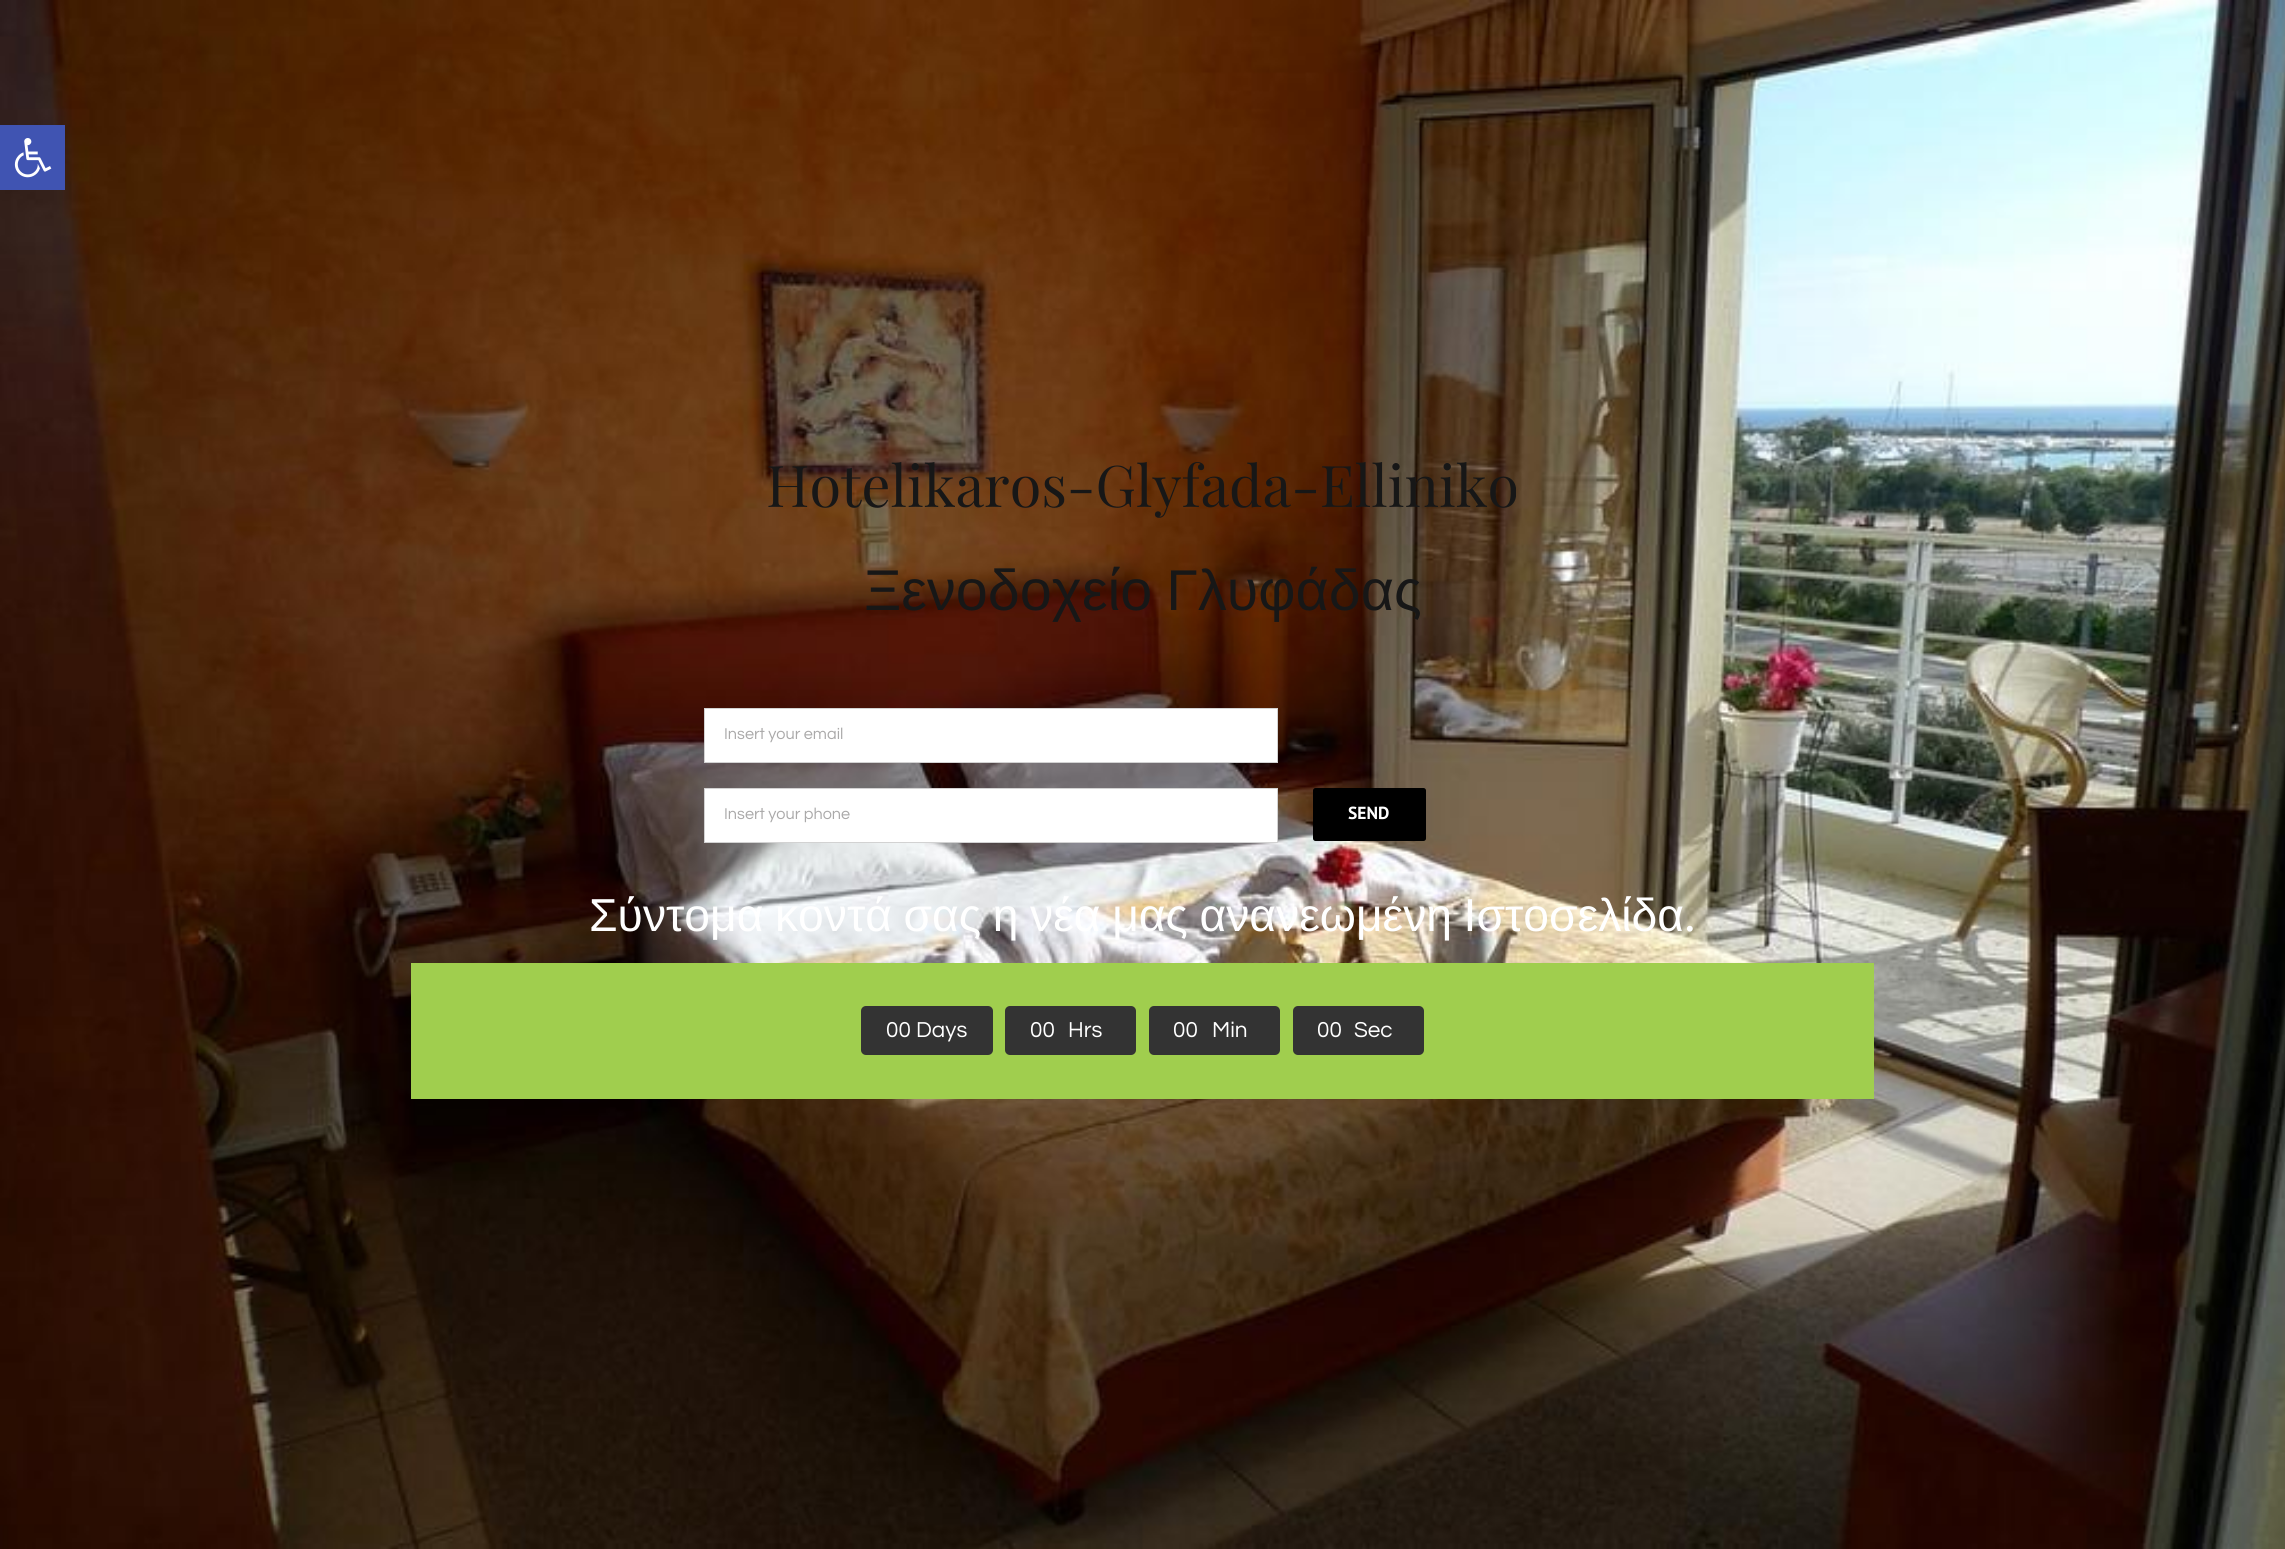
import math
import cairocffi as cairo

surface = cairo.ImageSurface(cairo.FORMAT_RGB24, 2285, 1549)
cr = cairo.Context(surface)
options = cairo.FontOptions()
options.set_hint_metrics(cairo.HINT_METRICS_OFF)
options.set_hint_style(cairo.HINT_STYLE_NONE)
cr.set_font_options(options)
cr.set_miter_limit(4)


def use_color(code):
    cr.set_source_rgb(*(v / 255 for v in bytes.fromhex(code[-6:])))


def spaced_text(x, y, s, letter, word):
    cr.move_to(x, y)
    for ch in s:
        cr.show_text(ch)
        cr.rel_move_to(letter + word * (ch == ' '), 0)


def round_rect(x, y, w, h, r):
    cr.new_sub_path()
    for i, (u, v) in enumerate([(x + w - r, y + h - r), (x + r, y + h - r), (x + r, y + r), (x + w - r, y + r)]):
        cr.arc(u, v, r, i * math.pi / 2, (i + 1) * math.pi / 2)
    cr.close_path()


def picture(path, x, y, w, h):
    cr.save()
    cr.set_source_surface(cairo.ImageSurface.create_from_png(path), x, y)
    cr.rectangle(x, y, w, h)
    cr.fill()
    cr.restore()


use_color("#ffffff")
cr.paint()
picture("img2.png", 0, 0, 2285, 1549)
use_color("#4054b2")
cr.rectangle(0, 125, 65, 65)
cr.fill()
picture("img1.png", 14, 138, 38, 40)
cr.select_font_face("Playfair Display")
cr.set_font_size(57.5)
use_color("#171717")
cr.move_to(766, 507)
cr.show_text("Hotelikaros-Glyfada-Elliniko")
cr.select_font_face("Liberation Sans")
spaced_text(864, 610, "Ξενοδοχείο Γλυφάδας", 0, -2)
use_color("#ffffff")
cr.rectangle(704.5, 708.5, 573, 54)
cr.fill_preserve()
use_color("#d2d2d2")
cr.set_line_width(1)
cr.stroke()
cr.select_font_face("Questrial")
cr.set_font_size(16.25)
use_color("#aaa9a9")
cr.move_to(724, 739)
cr.show_text("Insert your email")
use_color("#ffffff")
cr.rectangle(704.5, 788.5, 573, 54)
cr.fill_preserve()
use_color("#d2d2d2")
cr.stroke()
use_color("#aaa9a9")
cr.move_to(724, 819)
cr.show_text("Insert your phone")
use_color("#000000")
round_rect(1313, 788, 113, 53, 2.5)
cr.fill()
cr.select_font_face("PT Sans", cairo.FONT_SLANT_NORMAL, cairo.FONT_WEIGHT_BOLD)
cr.set_font_size(17.5)
use_color("#ffffff")
cr.move_to(1348, 819)
cr.show_text("SEND")
cr.select_font_face("Liberation Sans")
cr.set_font_size(46.25)
spaced_text(589, 931, "Σύντομα κοντά σας η νέα μας ανανεωμένη Ιστοσελίδα", 0, -1.25)
cr.select_font_face("Playfair Display")
cr.move_to(1684, 931)
cr.show_text(".")
use_color("#a0ce4e")
cr.rectangle(411, 963, 1463, 136)
cr.fill()
use_color("#333333")
round_rect(861, 1006, 132, 49, 5)
cr.fill()
cr.select_font_face("Questrial")
cr.set_font_size(22.5)
use_color("#ffffff")
cr.move_to(886, 1037)
cr.show_text("00")
cr.move_to(916, 1037)
cr.show_text("Days")
use_color("#333333")
round_rect(1005, 1006, 131, 49, 5)
cr.fill()
use_color("#ffffff")
cr.move_to(1030, 1037)
cr.show_text("00")
cr.move_to(1068, 1037)
cr.show_text("Hrs")
use_color("#333333")
round_rect(1149, 1006, 131, 49, 5)
cr.fill()
use_color("#ffffff")
cr.move_to(1173, 1037)
cr.show_text("00")
cr.move_to(1212, 1037)
cr.show_text("Min")
use_color("#333333")
round_rect(1293, 1006, 131, 49, 5)
cr.fill()
use_color("#ffffff")
cr.move_to(1317, 1037)
cr.show_text("00")
cr.move_to(1354, 1037)
cr.show_text("Sec")
surface.write_to_png("result.png")
